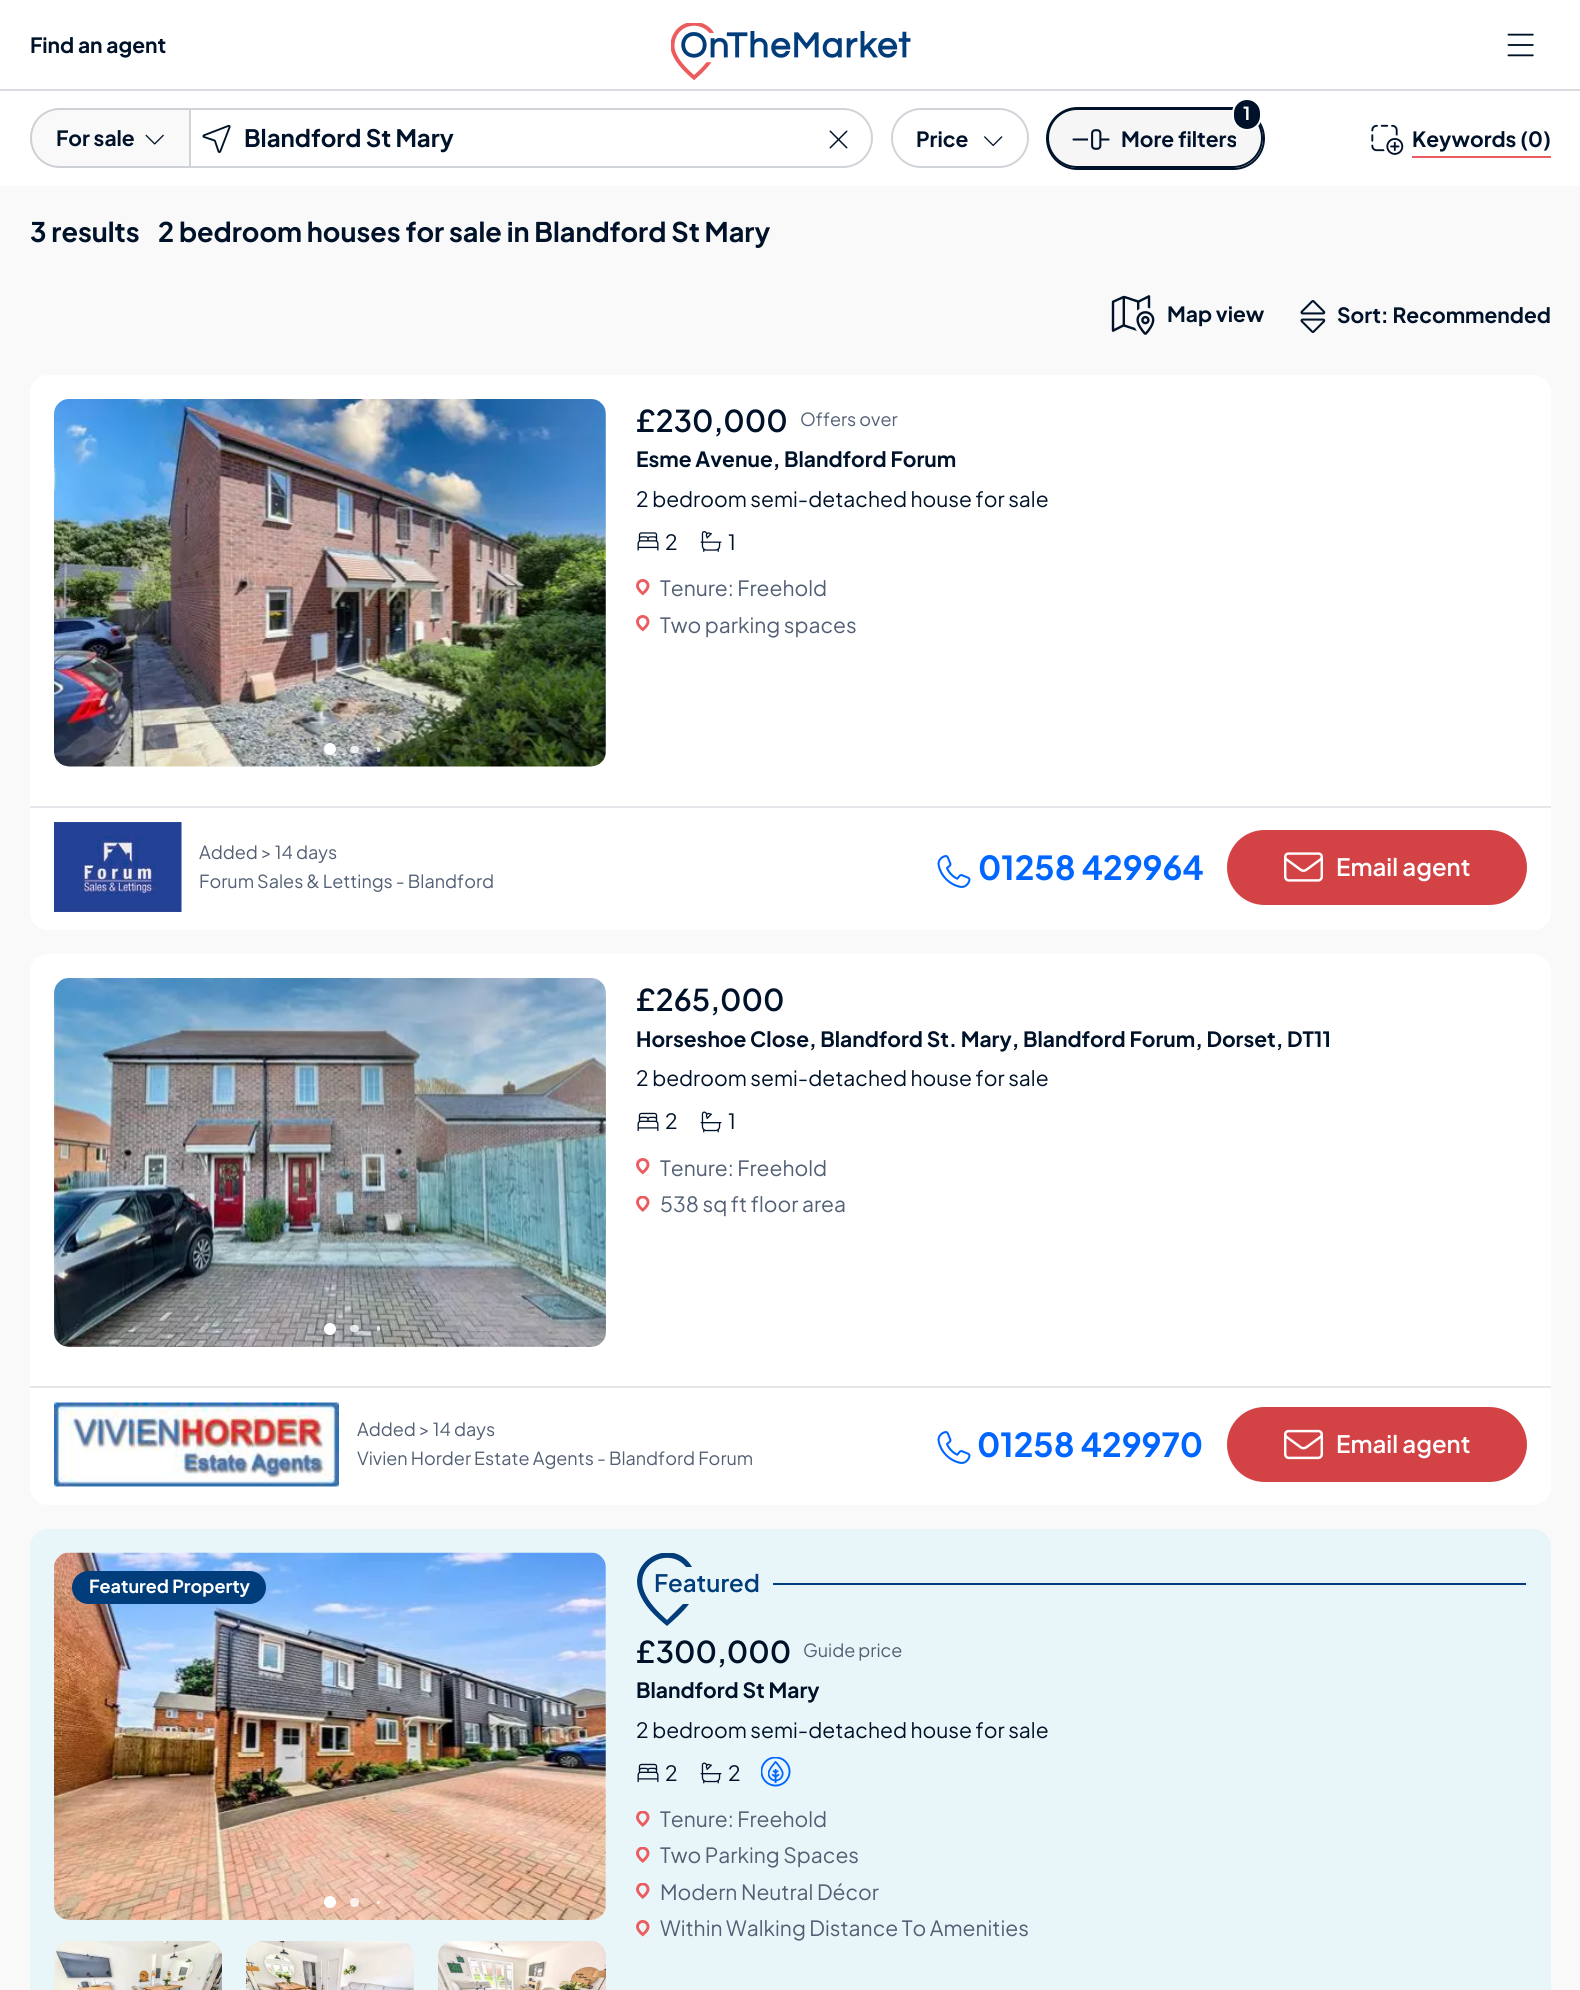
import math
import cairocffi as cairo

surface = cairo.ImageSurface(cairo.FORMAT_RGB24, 1580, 1990)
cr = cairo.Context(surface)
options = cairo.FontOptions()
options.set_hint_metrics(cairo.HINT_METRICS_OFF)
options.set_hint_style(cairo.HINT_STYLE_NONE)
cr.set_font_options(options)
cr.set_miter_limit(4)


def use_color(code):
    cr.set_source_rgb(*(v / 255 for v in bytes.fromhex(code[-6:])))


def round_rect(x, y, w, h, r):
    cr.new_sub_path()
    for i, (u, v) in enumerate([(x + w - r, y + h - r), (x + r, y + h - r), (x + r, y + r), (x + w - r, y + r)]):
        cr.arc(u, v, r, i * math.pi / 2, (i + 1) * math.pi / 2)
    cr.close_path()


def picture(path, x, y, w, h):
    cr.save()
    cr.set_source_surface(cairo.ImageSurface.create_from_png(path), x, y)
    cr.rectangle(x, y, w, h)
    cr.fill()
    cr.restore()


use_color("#ffffff")
cr.paint()
use_color("#d9dce1")
cr.rectangle(0, 89, 1580, 2)
cr.fill()
cr.select_font_face("Plus Jakarta Sans", cairo.FONT_SLANT_NORMAL, cairo.FONT_WEIGHT_BOLD)
cr.set_font_size(21)
use_color("#001229")
cr.move_to(30, 53)
cr.show_text("Find an agent")
picture("img1.png", 671, 23, 240, 57)
picture("img2.png", 1507, 33, 27, 24)
use_color("#faf9f9")
cr.new_path()
cr.move_to(60, 108)
cr.line_to(189, 108)
cr.line_to(189, 168)
cr.line_to(60, 168)
cr.curve_to(43.5, 168, 30, 154.5, 30, 138)
cr.curve_to(30, 121.5, 43.5, 108, 60, 108)
cr.close_path()
cr.fill()
cr.set_source_rgba(0.631, 0.659, 0.702, 0.5)
cr.set_fill_rule(cairo.FILL_RULE_EVEN_ODD)
cr.new_path()
cr.move_to(60, 108)
cr.line_to(189, 108)
cr.line_to(189, 168)
cr.line_to(60, 168)
cr.curve_to(43, 168, 30, 155, 30, 138)
cr.curve_to(30, 121, 43, 108, 60, 108)
cr.close_path()
cr.move_to(60, 110)
cr.line_to(189, 110)
cr.line_to(189, 166)
cr.line_to(60, 166)
cr.curve_to(44, 166, 32, 154, 32, 138)
cr.curve_to(32, 122, 44, 110, 60, 110)
cr.close_path()
cr.fill()
use_color("#001229")
cr.move_to(56, 146)
cr.show_text("For sale")
picture("img3.png", 145, 134, 19, 11)
cr.new_path()
cr.move_to(190, 109)
cr.line_to(843, 109)
cr.curve_to(859, 109, 872, 122, 872, 138)
cr.curve_to(872, 154, 859, 167, 843, 167)
cr.line_to(190, 167)
cr.close_path()
use_color("#d0d4d9")
cr.stroke()
picture("img4.png", 202, 124, 29, 29)
cr.set_font_size(24)
use_color("#001229")
cr.move_to(244, 147)
cr.show_text("Blandford St Mary")
picture("img5.png", 829, 130, 19, 19)
round_rect(892, 109, 136, 58, 29)
use_color("#d0d4d9")
cr.stroke()
cr.set_font_size(21)
use_color("#001229")
cr.move_to(916, 147)
cr.show_text("Price")
picture("img6.png", 984, 136, 19, 10)
round_rect(1047, 108, 217, 61, 30.5)
cr.stroke()
cr.set_source_rgba(0.631, 0.659, 0.702, 0.1)
round_rect(1048, 109, 214, 58, 29)
cr.fill_preserve()
use_color("#001229")
cr.stroke()
round_rect(1233, 99, 28, 31, 14)
cr.fill_preserve()
use_color("#ffffff")
cr.stroke()
cr.set_font_size(18)
cr.move_to(1243, 120)
cr.show_text("1")
picture("img7.png", 1072, 129, 38, 21)
cr.set_font_size(21)
use_color("#001229")
cr.move_to(1121, 147)
cr.show_text("More filters")
picture("img8.png", 1371, 124, 33, 31)
cr.move_to(1412, 147)
cr.show_text("Keywords (0)")
use_color("#eb5c5f")
cr.rectangle(1412, 156, 139, 2)
cr.fill()
use_color("#faf9f9")
cr.rectangle(0, 186, 1580, 1804)
cr.fill()
cr.set_font_size(27)
use_color("#001229")
cr.move_to(30, 242)
cr.show_text("3 results")
cr.move_to(158, 242)
cr.show_text("2 bedroom houses for sale in Blandford St Mary")
picture("img9.png", 1111, 295, 44, 40)
cr.set_font_size(21)
cr.move_to(1167, 322)
cr.show_text("Map view")
picture("img10.png", 1300, 300, 26, 33)
cr.move_to(1337, 323)
cr.show_text("Sort: Recommended")
use_color("#ffffff")
round_rect(30, 375, 1521, 555, 18)
cr.fill()
picture("img11.png", 54, 399, 552, 368)
cr.arc(330, 749, 6, 0, 2 * math.pi)
cr.fill()
cr.set_source_rgba(1, 1, 1, 0.8)
round_rect(350, 746, 9, 7, 3.5)
cr.fill()
round_rect(377, 747, 3, 5, 1.5)
cr.fill()
cr.select_font_face("Plus Jakarta Sans SemiBold")
cr.set_font_size(30)
use_color("#001229")
cr.move_to(636, 432)
cr.show_text("£230,000")
cr.select_font_face("Plus Jakarta Sans")
cr.set_font_size(18)
use_color("#525f74")
cr.move_to(800, 426)
cr.show_text("Offers over")
cr.select_font_face("Plus Jakarta Sans", cairo.FONT_SLANT_NORMAL, cairo.FONT_WEIGHT_BOLD)
cr.set_font_size(21)
use_color("#001229")
cr.move_to(636, 467)
cr.show_text("Esme Avenue, Blandford Forum")
cr.select_font_face("Plus Jakarta Sans")
cr.move_to(636, 507)
cr.show_text("2 bedroom semi-detached house for sale")
picture("img12.png", 637, 532, 22, 19)
cr.move_to(665, 550)
cr.show_text("2")
picture("img13.png", 700, 531, 22, 21)
cr.move_to(728, 550)
cr.show_text("1")
picture("img14.png", 636, 579, 14, 17)
use_color("#525f74")
cr.move_to(660, 596)
cr.show_text("Tenure: Freehold")
picture("img14.png", 636, 615, 14, 17)
cr.move_to(660, 633)
cr.show_text("Two parking spaces")
use_color("#e5e7eb")
cr.rectangle(30, 806, 1521, 2)
cr.fill()
picture("img15.png", 54, 822, 128, 90)
cr.set_font_size(18)
use_color("#525f74")
cr.move_to(199, 859)
cr.show_text("Added > 14 days")
cr.move_to(199, 888)
cr.show_text("Forum Sales & Lettings - Blandford")
picture("img16.png", 937, 855, 34, 33)
cr.select_font_face("Plus Jakarta Sans", cairo.FONT_SLANT_NORMAL, cairo.FONT_WEIGHT_BOLD)
cr.set_font_size(33)
use_color("#0066ff")
cr.move_to(978, 880)
cr.show_text("01258 429964")
use_color("#d34346")
round_rect(1228.5, 831.5, 297, 72, 36)
cr.fill_preserve()
cr.set_line_width(3)
cr.stroke()
picture("img17.png", 1284, 852, 39, 30)
cr.select_font_face("Plus Jakarta Sans SemiBold")
cr.set_font_size(24)
use_color("#ffffff")
cr.move_to(1336, 876)
cr.show_text("Email agent")
round_rect(30, 954, 1521, 551, 18)
cr.fill()
picture("img18.png", 54, 978, 552, 369)
cr.arc(330, 1329, 6, 0, 2 * math.pi)
cr.fill()
cr.set_source_rgba(1, 1, 1, 0.8)
round_rect(350, 1325, 9, 7, 3.5)
cr.fill()
round_rect(377, 1326, 3, 5, 1.5)
cr.fill()
cr.set_font_size(30)
use_color("#001229")
cr.move_to(636, 1011)
cr.show_text("£265,000")
cr.select_font_face("Plus Jakarta Sans", cairo.FONT_SLANT_NORMAL, cairo.FONT_WEIGHT_BOLD)
cr.set_font_size(21)
cr.move_to(636, 1047)
cr.show_text("Horseshoe Close, Blandford St. Mary, Blandford Forum, Dorset, DT11")
cr.select_font_face("Plus Jakarta Sans")
cr.move_to(636, 1086)
cr.show_text("2 bedroom semi-detached house for sale")
picture("img19.png", 637, 1112, 22, 20)
cr.move_to(665, 1129)
cr.show_text("2")
picture("img20.png", 700, 1111, 22, 22)
cr.move_to(728, 1129)
cr.show_text("1")
picture("img14.png", 636, 1158, 14, 17)
use_color("#525f74")
cr.move_to(660, 1176)
cr.show_text("Tenure: Freehold")
picture("img21.png", 636, 1196, 14, 16)
cr.move_to(660, 1212)
cr.show_text("538 sq ft floor area")
use_color("#e5e7eb")
cr.rectangle(30, 1386, 1521, 2)
cr.fill()
picture("img22.png", 54, 1402, 285, 85)
cr.set_font_size(18)
use_color("#525f74")
cr.move_to(357, 1436)
cr.show_text("Added > 14 days")
cr.move_to(357, 1465)
cr.show_text("Vivien Horder Estate Agents - Blandford Forum")
picture("img16.png", 937, 1431, 34, 33)
cr.select_font_face("Plus Jakarta Sans", cairo.FONT_SLANT_NORMAL, cairo.FONT_WEIGHT_BOLD)
cr.set_font_size(33)
use_color("#0066ff")
cr.move_to(977, 1457)
cr.show_text("01258 429970")
use_color("#d34346")
round_rect(1228.5, 1408.5, 297, 72, 36)
cr.fill_preserve()
cr.stroke()
picture("img23.png", 1284, 1429, 39, 31)
cr.select_font_face("Plus Jakarta Sans SemiBold")
cr.set_font_size(24)
use_color("#ffffff")
cr.move_to(1336, 1453)
cr.show_text("Email agent")
use_color("#e9f6f9")
cr.new_path()
cr.move_to(48, 1529)
cr.line_to(1533, 1529)
cr.curve_to(1543, 1529, 1551, 1537, 1551, 1547)
cr.line_to(1551, 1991)
cr.line_to(30, 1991)
cr.line_to(30, 1547)
cr.curve_to(30, 1537, 38, 1529, 48, 1529)
cr.close_path()
cr.fill()
use_color("#ffffff")
round_rect(54, 1553, 552, 367, 15)
cr.fill()
picture("img24.png", 54, 1552, 552, 368)
cr.arc(330, 1902, 6, 0, 2 * math.pi)
cr.fill()
cr.set_source_rgba(1, 1, 1, 0.8)
cr.arc(354.5, 1902.5, 4.5, 0, 2 * math.pi)
cr.fill()
cr.arc(378.5, 1902.5, 1.5, 0, 2 * math.pi)
cr.fill()
use_color("#003d7a")
round_rect(72, 1571, 194, 33, 16.5)
cr.fill()
cr.select_font_face("Plus Jakarta Sans", cairo.FONT_SLANT_NORMAL, cairo.FONT_WEIGHT_BOLD)
cr.set_font_size(18)
use_color("#ffffff")
cr.move_to(89, 1593)
cr.show_text("Featured Property")
picture("img25.png", 54, 1941, 168, 49)
picture("img26.png", 246, 1941, 168, 49)
picture("img27.png", 438, 1941, 168, 49)
cr.save()
cr.set_fill_rule(cairo.FILL_RULE_WINDING)
cr.rectangle(636, 1553, 59, 75)
cr.clip()
use_color("#003d7a")
cr.new_path()
cr.move_to(679, 1608)
cr.line_to(667, 1620)
cr.curve_to(658, 1612, 648, 1602, 644, 1591)
cr.curve_to(634, 1564, 669, 1546, 686, 1567)
cr.line_to(692, 1567)
cr.curve_to(674, 1536, 627, 1559, 639, 1592)
cr.curve_to(644, 1606, 656, 1617, 667, 1626)
cr.curve_to(675, 1619, 683, 1612, 689, 1604)
cr.line_to(683, 1604)
cr.close_path()
cr.fill()
cr.restore()
cr.select_font_face("Plus Jakarta Sans SemiBold")
cr.set_font_size(24)
use_color("#003d7a")
cr.move_to(654, 1592)
cr.show_text("Featured")
cr.rectangle(773, 1583, 753, 2)
cr.fill()
cr.set_font_size(30)
use_color("#001229")
cr.move_to(636, 1663)
cr.show_text("£300,000")
cr.select_font_face("Plus Jakarta Sans")
cr.set_font_size(18)
use_color("#525f74")
cr.move_to(803, 1657)
cr.show_text("Guide price")
cr.select_font_face("Plus Jakarta Sans", cairo.FONT_SLANT_NORMAL, cairo.FONT_WEIGHT_BOLD)
cr.set_font_size(21)
use_color("#001229")
cr.move_to(636, 1698)
cr.show_text("Blandford St Mary")
cr.select_font_face("Plus Jakarta Sans")
cr.move_to(636, 1738)
cr.show_text("2 bedroom semi-detached house for sale")
picture("img28.png", 637, 1763, 22, 20)
cr.move_to(665, 1781)
cr.show_text("2")
picture("img29.png", 700, 1762, 22, 22)
cr.move_to(728, 1781)
cr.show_text("2")
picture("img30.png", 761, 1757, 30, 30)
picture("img31.png", 636, 1811, 14, 16)
use_color("#525f74")
cr.move_to(660, 1827)
cr.show_text("Tenure: Freehold")
picture("img31.png", 636, 1847, 14, 16)
cr.move_to(660, 1863)
cr.show_text("Two Parking Spaces")
picture("img31.png", 636, 1883, 14, 16)
cr.move_to(660, 1900)
cr.show_text("Modern Neutral Décor")
picture("img32.png", 636, 1920, 14, 17)
cr.move_to(660, 1936)
cr.show_text("Within Walking Distance To Amenities")
surface.write_to_png("result.png")
